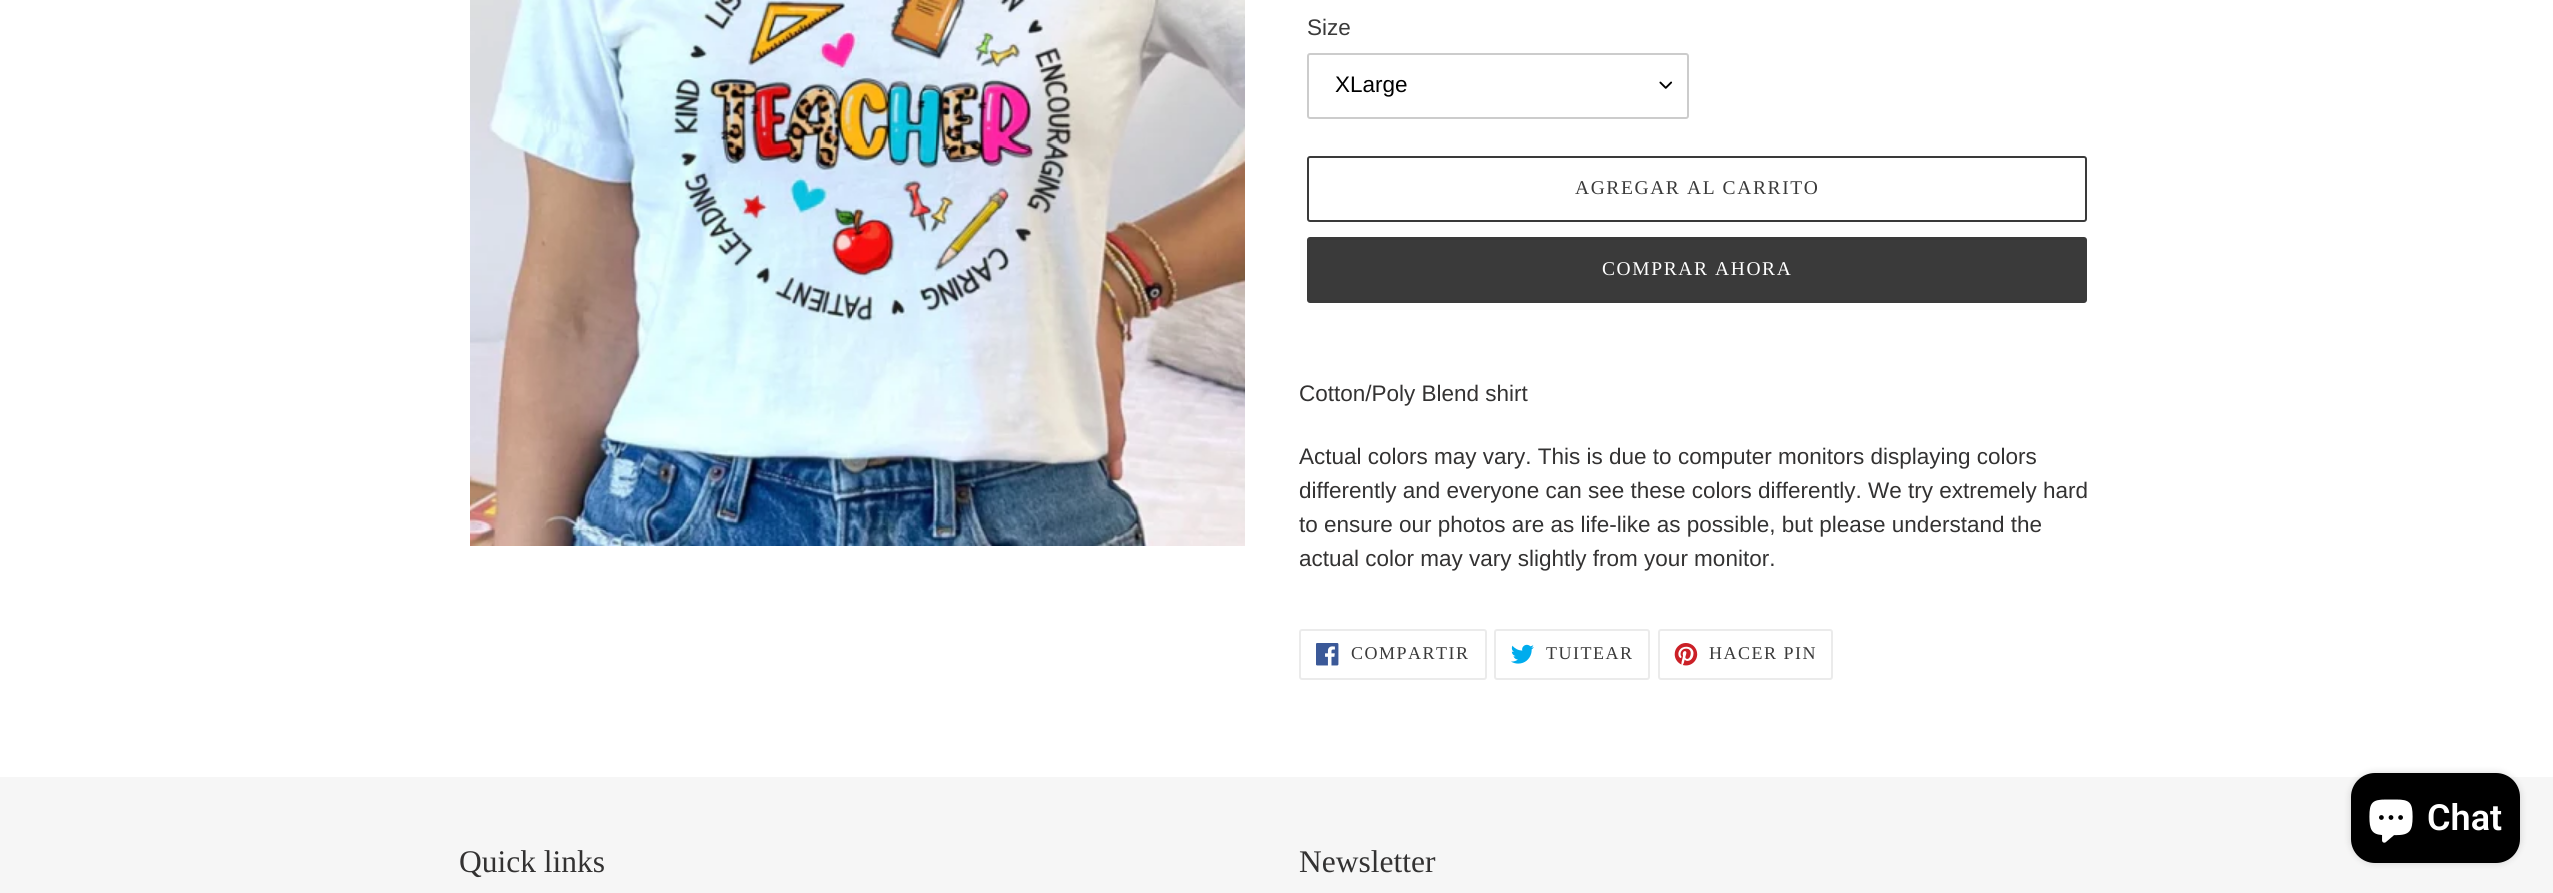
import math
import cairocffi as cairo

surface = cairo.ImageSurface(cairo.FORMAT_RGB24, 2553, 893)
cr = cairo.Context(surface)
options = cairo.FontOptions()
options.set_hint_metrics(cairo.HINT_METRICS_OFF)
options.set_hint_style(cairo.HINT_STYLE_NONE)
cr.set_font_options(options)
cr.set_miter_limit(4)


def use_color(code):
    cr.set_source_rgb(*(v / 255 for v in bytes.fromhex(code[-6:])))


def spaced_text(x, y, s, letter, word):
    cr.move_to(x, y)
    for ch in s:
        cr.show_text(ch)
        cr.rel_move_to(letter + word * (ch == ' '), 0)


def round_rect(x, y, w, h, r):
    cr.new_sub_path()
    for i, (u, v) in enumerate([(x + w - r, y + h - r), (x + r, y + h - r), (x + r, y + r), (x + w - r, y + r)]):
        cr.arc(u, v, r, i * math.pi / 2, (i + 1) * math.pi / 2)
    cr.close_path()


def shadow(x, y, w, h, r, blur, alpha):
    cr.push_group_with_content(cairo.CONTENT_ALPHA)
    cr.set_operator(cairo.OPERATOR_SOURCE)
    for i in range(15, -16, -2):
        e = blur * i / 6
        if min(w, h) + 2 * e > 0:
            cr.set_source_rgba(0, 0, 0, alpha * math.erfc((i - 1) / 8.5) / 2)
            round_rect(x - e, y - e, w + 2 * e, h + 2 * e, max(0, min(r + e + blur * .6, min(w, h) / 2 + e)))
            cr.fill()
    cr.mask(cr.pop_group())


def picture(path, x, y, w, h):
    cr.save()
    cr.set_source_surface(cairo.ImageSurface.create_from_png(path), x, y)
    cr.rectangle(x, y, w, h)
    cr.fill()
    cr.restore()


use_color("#ffffff")
cr.paint()
picture("img1.png", 470, 0, 775, 546)
cr.select_font_face("Liberation Sans")
cr.set_font_size(22.5)
use_color("#3a3a3a")
cr.move_to(1307, 35)
cr.show_text("Size")
picture("img2.png", 1659, 81, 14, 8)
round_rect(1308, 54, 380, 64, 2)
use_color("#cccccc")
cr.stroke()
use_color("#000000")
cr.move_to(1335, 92)
cr.show_text("XLarge")
round_rect(1308, 157, 778, 64, 2)
use_color("#3a3a3a")
cr.stroke()
cr.select_font_face("Liberation Serif")
cr.set_font_size(19.5)
spaced_text(1575, 194, "AGREGAR AL CARRITO", 1.6, 0)
round_rect(1307, 237, 780, 66, 3)
cr.fill()
use_color("#ffffff")
spaced_text(1602, 275, "COMPRAR AHORA", 1.6, 0)
cr.select_font_face("Liberation Sans")
cr.set_font_size(22.5)
use_color("#333232")
cr.move_to(1299, 401)
cr.show_text("Cotton/Poly Blend shirt")
cr.move_to(1299, 464)
cr.show_text("Actual colors may vary. This is due to computer monitors displaying colors")
cr.move_to(1299, 498)
cr.show_text("differently and everyone can see these colors differently. We try extremely hard")
cr.move_to(1299, 532)
cr.show_text("to ensure our photos are as life-like as possible, but please understand the")
cr.move_to(1299, 566)
cr.show_text("actual color may vary slightly from your monitor.")
round_rect(1300, 630, 186, 49, 2)
use_color("#ebebeb")
cr.stroke()
picture("img3.png", 1316, 643, 23, 23)
cr.select_font_face("Liberation Serif")
cr.set_font_size(18)
use_color("#3a3a3a")
spaced_text(1351, 659, "COMPARTIR", 1.5, 0)
round_rect(1495, 630, 154, 49, 2)
use_color("#ebebeb")
cr.stroke()
picture("img4.png", 1511, 644, 23, 20)
use_color("#3a3a3a")
spaced_text(1546, 659, "TUITEAR", 1.5, 0)
round_rect(1659, 630, 173, 49, 2)
use_color("#ebebeb")
cr.stroke()
picture("img5.png", 1674, 643, 24, 23)
use_color("#3a3a3a")
spaced_text(1709, 659, "HACER PIN", 1.5, 0)
use_color("#f6f6f6")
cr.rectangle(0, 777, 2553, 116)
cr.fill()
cr.set_font_size(31.5)
use_color("#333232")
cr.move_to(459, 872)
cr.show_text("Quick links")
cr.move_to(1299, 872)
cr.show_text("Newsletter")
use_color("#000000")
shadow(2351, 773, 169, 90, 24, 4, 0.15)
use_color("#000000")
round_rect(2351, 773, 169, 90, 24)
cr.fill()
picture("img6.png", 2369, 799, 44, 44)
cr.select_font_face("Roboto SemiBold")
cr.set_font_size(36)
use_color("#ffffff")
cr.move_to(2427, 830)
cr.show_text("Chat")
surface.write_to_png("result.png")
